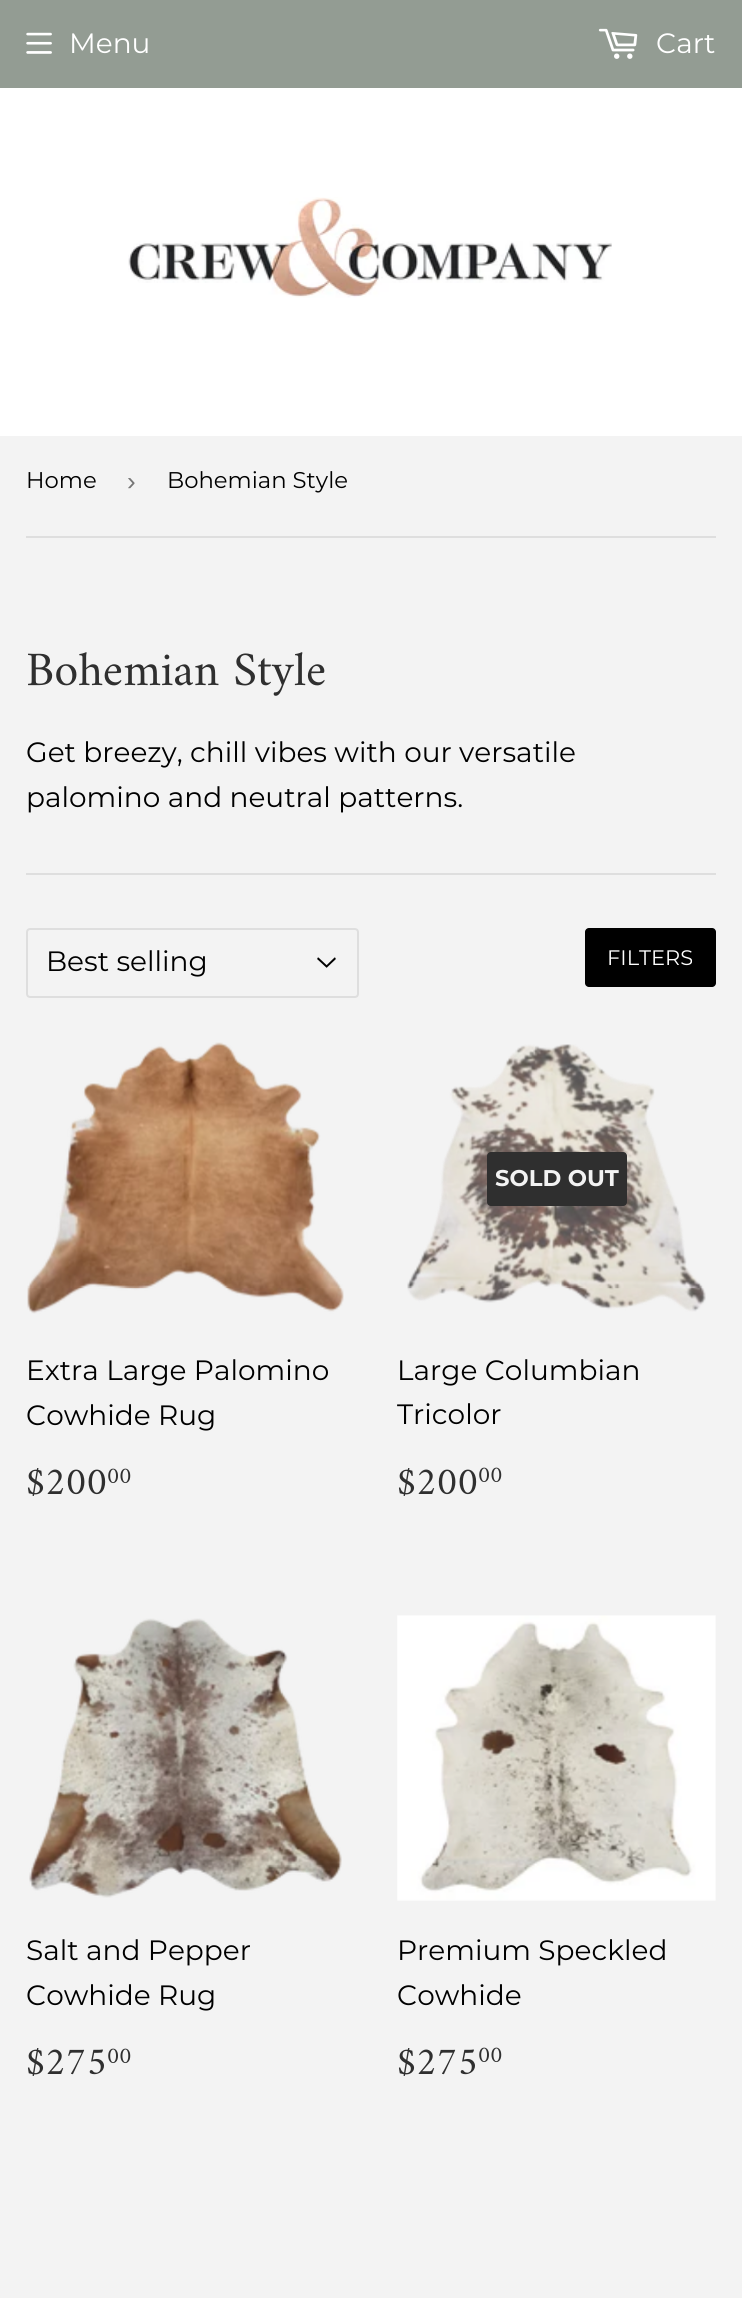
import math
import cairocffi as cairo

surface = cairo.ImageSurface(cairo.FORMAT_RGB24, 742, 2307)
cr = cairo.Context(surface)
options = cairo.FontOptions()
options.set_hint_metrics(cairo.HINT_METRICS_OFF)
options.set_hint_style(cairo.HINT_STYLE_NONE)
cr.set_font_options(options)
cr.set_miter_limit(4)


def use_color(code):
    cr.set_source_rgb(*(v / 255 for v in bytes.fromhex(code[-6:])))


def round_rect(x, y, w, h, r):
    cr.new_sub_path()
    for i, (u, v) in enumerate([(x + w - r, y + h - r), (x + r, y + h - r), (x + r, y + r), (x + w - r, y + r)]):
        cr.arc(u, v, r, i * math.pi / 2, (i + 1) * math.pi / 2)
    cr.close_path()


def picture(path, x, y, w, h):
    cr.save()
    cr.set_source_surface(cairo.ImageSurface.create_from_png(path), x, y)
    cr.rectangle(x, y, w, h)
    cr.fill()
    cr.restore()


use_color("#f3f3f3")
cr.paint()
use_color("#939c93")
cr.rectangle(0, 0, 742, 88)
cr.fill()
picture("img1.png", 26, 32, 26, 22)
cr.select_font_face("Montserrat")
cr.set_font_size(28)
use_color("#ffffff")
cr.move_to(69, 53)
cr.show_text("Menu")
picture("img2.png", 598, 28, 40, 31)
cr.move_to(656, 53)
cr.show_text("Cart")
cr.rectangle(0, 88, 742, 348)
cr.fill()
picture("img3.png", 128, 197, 484, 101)
use_color("#dedede")
cr.rectangle(26, 536, 690, 2)
cr.fill()
cr.set_font_size(22.75)
use_color("#000000")
cr.move_to(26, 488)
cr.show_text("Home")
cr.select_font_face("Liberation Sans")
cr.set_font_size(26)
use_color("#767676")
cr.move_to(127, 490)
cr.show_text("›")
cr.select_font_face("Montserrat")
cr.set_font_size(22.75)
use_color("#000000")
cr.move_to(167, 488)
cr.show_text("Bohemian Style")
cr.select_font_face("Amiri")
cr.set_font_size(48.5)
use_color("#2f2f2f")
cr.move_to(26, 685)
cr.show_text("Bohemian Style")
cr.select_font_face("Montserrat")
cr.set_font_size(28)
use_color("#000000")
cr.move_to(26, 762)
cr.show_text("Get breezy, chill vibes with our versatile")
cr.move_to(26, 807)
cr.show_text("palomino and neutral patterns.")
use_color("#dedede")
cr.rectangle(26, 873, 690, 2)
cr.fill()
picture("img4.png", 317, 957, 19, 11)
round_rect(27, 929, 331, 68, 3)
cr.stroke()
use_color("#000000")
cr.move_to(46, 971)
cr.show_text("Best selling")
round_rect(585, 928, 131, 59, 4)
cr.fill()
cr.set_font_size(21)
use_color("#ffffff")
cr.move_to(607, 965)
cr.show_text("FILTERS")
picture("img5.png", 27, 1042, 317, 272)
cr.set_font_size(28)
use_color("#000000")
cr.move_to(26, 1380)
cr.show_text("Extra Large Palomino")
cr.move_to(26, 1425)
cr.show_text("Cowhide Rug")
cr.select_font_face("Amiri")
cr.set_font_size(39)
use_color("#2f2f2f")
cr.move_to(26, 1494)
cr.show_text("$200")
cr.set_font_size(23)
cr.move_to(107, 1483)
cr.show_text("00")
picture("img6.png", 407, 1044, 299, 268)
round_rect(487, 1152, 140, 54, 4)
cr.fill()
cr.select_font_face("Montserrat", cairo.FONT_SLANT_NORMAL, cairo.FONT_WEIGHT_BOLD)
cr.set_font_size(22.75)
use_color("#f3f3f3")
cr.move_to(495, 1186)
cr.show_text("SOLD OUT")
cr.select_font_face("Montserrat")
cr.set_font_size(28)
use_color("#000000")
cr.move_to(397, 1380)
cr.show_text("Large Columbian")
cr.move_to(397, 1424)
cr.show_text("Tricolor")
cr.select_font_face("Amiri")
cr.set_font_size(39)
use_color("#2f2f2f")
cr.move_to(397, 1494)
cr.show_text("$200")
cr.set_font_size(23)
cr.move_to(478, 1482)
cr.show_text("00")
picture("img7.png", 29, 1618, 313, 280)
cr.select_font_face("Montserrat")
cr.set_font_size(28)
use_color("#000000")
cr.move_to(26, 1960)
cr.show_text("Salt and Pepper")
cr.move_to(26, 2005)
cr.show_text("Cowhide Rug")
cr.select_font_face("Amiri")
cr.set_font_size(39)
use_color("#2f2f2f")
cr.move_to(26, 2074)
cr.show_text("$275")
cr.set_font_size(23)
cr.move_to(107, 2063)
cr.show_text("00")
picture("img8.png", 397, 1615, 319, 286)
cr.select_font_face("Montserrat")
cr.set_font_size(28)
use_color("#000000")
cr.move_to(397, 1960)
cr.show_text("Premium Speckled")
cr.move_to(397, 2005)
cr.show_text("Cowhide")
cr.select_font_face("Amiri")
cr.set_font_size(39)
use_color("#2f2f2f")
cr.move_to(397, 2074)
cr.show_text("$275")
cr.set_font_size(23)
cr.move_to(478, 2062)
cr.show_text("00")
use_color("#ffffff")
cr.rectangle(0, 2298, 742, 9)
cr.fill()
surface.write_to_png("result.png")
